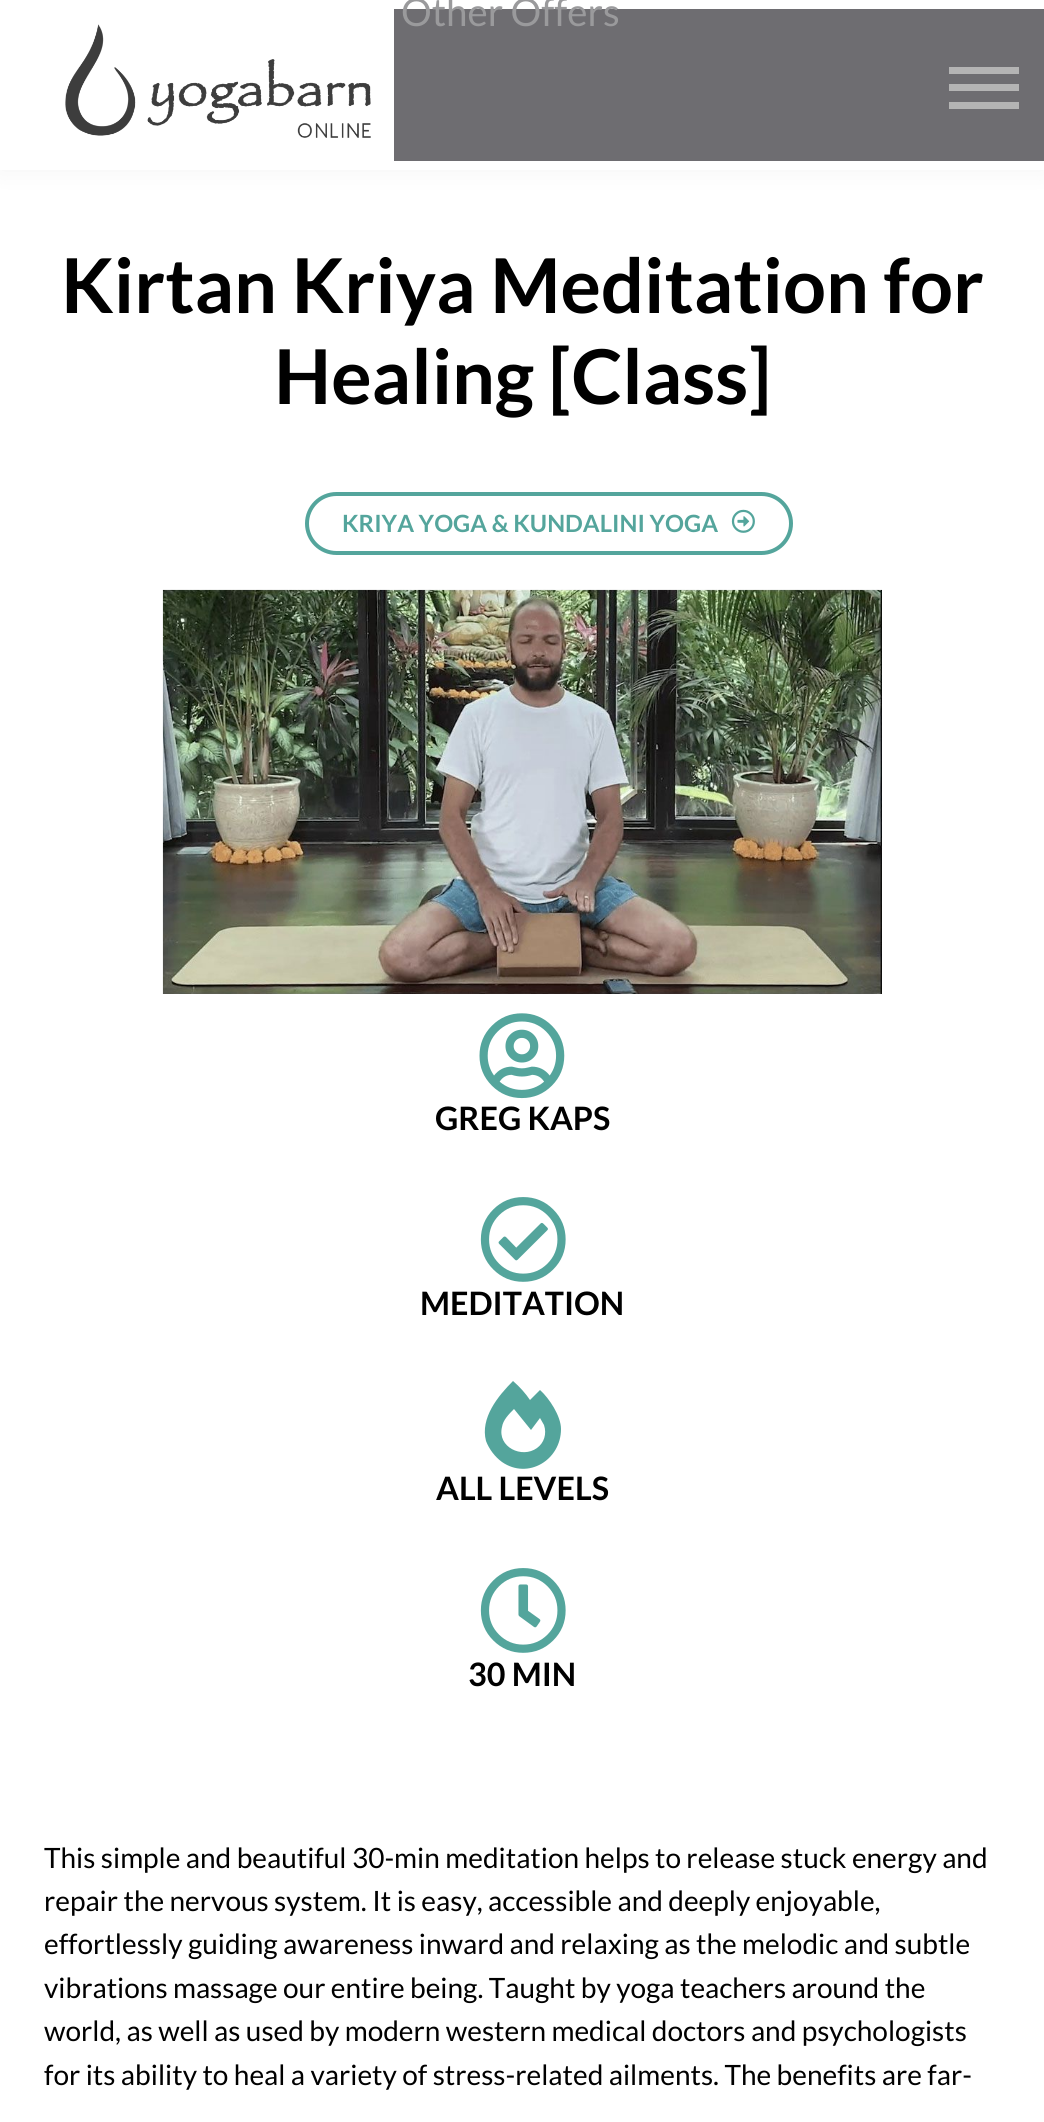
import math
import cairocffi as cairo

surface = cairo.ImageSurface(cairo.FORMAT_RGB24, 1044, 2122)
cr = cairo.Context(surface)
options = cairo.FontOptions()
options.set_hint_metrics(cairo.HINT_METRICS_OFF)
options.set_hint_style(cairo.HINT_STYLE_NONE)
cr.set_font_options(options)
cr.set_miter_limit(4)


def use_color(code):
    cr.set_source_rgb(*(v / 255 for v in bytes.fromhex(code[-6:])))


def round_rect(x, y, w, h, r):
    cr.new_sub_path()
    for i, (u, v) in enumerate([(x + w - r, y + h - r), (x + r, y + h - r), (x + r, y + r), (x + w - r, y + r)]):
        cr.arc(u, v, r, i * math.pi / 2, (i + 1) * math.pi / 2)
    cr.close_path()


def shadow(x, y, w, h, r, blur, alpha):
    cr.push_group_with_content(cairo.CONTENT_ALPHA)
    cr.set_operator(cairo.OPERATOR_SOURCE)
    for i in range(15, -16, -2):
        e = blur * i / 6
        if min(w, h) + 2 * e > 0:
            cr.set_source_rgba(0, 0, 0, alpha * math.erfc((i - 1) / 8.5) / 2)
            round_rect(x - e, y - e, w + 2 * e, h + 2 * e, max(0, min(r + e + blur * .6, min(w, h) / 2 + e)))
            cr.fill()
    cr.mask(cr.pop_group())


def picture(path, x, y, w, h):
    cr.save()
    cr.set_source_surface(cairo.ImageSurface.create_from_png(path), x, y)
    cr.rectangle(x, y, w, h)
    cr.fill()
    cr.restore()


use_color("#ffffff")
cr.paint()
use_color("#000000")
shadow(0, 0, 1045, 170, 0, 13, 0.05)
use_color("#ffffff")
cr.rectangle(0, 0, 1044, 170)
cr.fill()
use_color("#6e6d71")
cr.rectangle(394, 9, 650, 152)
cr.fill()
cr.select_font_face("Lato")
cr.set_font_size(38.5)
use_color("#9a9a9c")
cr.move_to(401, 26)
cr.show_text("Other Offers")
use_color("#b4b4b4")
cr.rectangle(949, 102, 70, 7)
cr.fill()
cr.rectangle(949, 67, 70, 7)
cr.fill()
cr.rectangle(949, 84, 70, 7)
cr.fill()
picture("img1.png", 65, 24, 306, 114)
cr.select_font_face("Lato", cairo.FONT_SLANT_NORMAL, cairo.FONT_WEIGHT_BOLD)
cr.set_font_size(75.6)
use_color("#000000")
cr.move_to(61, 313)
cr.show_text("Kirtan Kriya Meditation for")
cr.move_to(274, 404)
cr.show_text("Healing [Class]")
round_rect(307, 494, 484, 59, 29.5)
use_color("#54a59c")
cr.set_line_width(4)
cr.stroke()
cr.set_font_size(23.75)
cr.move_to(342, 532)
cr.show_text("KRIYA YOGA & KUNDALINI YOGA")
picture("img2.png", 731, 509, 24, 24)
picture("img3.png", 162, 589, 720, 405)
picture("img4.png", 479, 1013, 86, 86)
cr.set_font_size(32.25)
use_color("#000000")
cr.move_to(435, 1130)
cr.show_text("GREG KAPS")
picture("img5.png", 480, 1197, 86, 85)
cr.move_to(420, 1315)
cr.show_text("MEDITATION")
use_color("#54a59c")
cr.new_path()
cr.move_to(540, 1390)
cr.curve_to(549, 1398, 561, 1416, 561, 1429)
cr.curve_to(561, 1460, 528, 1480, 502, 1462)
cr.curve_to(495, 1457, 489, 1449, 486, 1441)
cr.curve_to(480, 1418, 498, 1396, 513, 1381)
cr.curve_to(520, 1387, 526, 1394, 530, 1400)
cr.close_path()
cr.move_to(537, 1448)
cr.curve_to(544, 1443, 547, 1434, 544, 1425)
cr.line_to(540, 1418)
cr.line_to(531, 1430)
cr.line_to(514, 1409)
cr.curve_to(509, 1414, 503, 1420, 502, 1427)
cr.curve_to(497, 1447, 522, 1459, 537, 1448)
cr.close_path()
cr.fill()
use_color("#000000")
cr.move_to(436, 1500)
cr.show_text("ALL LEVELS")
picture("img6.png", 480, 1568, 86, 85)
cr.move_to(468, 1686)
cr.show_text("30 MIN")
cr.select_font_face("Lato")
cr.set_font_size(28)
cr.move_to(44, 1868)
cr.show_text("This simple and beautiful 30-min meditation helps to release stuck energy and")
cr.move_to(44, 1911)
cr.show_text("repair the nervous system. It is easy, accessible and deeply enjoyable,")
cr.move_to(44, 1954)
cr.show_text("effortlessly guiding awareness inward and relaxing as the melodic and subtle")
cr.move_to(44, 1998)
cr.show_text("vibrations massage our entire being. Taught by yoga teachers around the")
cr.move_to(44, 2041)
cr.show_text("world, as well as used by modern western medical doctors and psychologists")
cr.move_to(44, 2085)
cr.show_text("for its ability to heal a variety of stress-related ailments. The benefits are far-")
surface.write_to_png("result.png")
